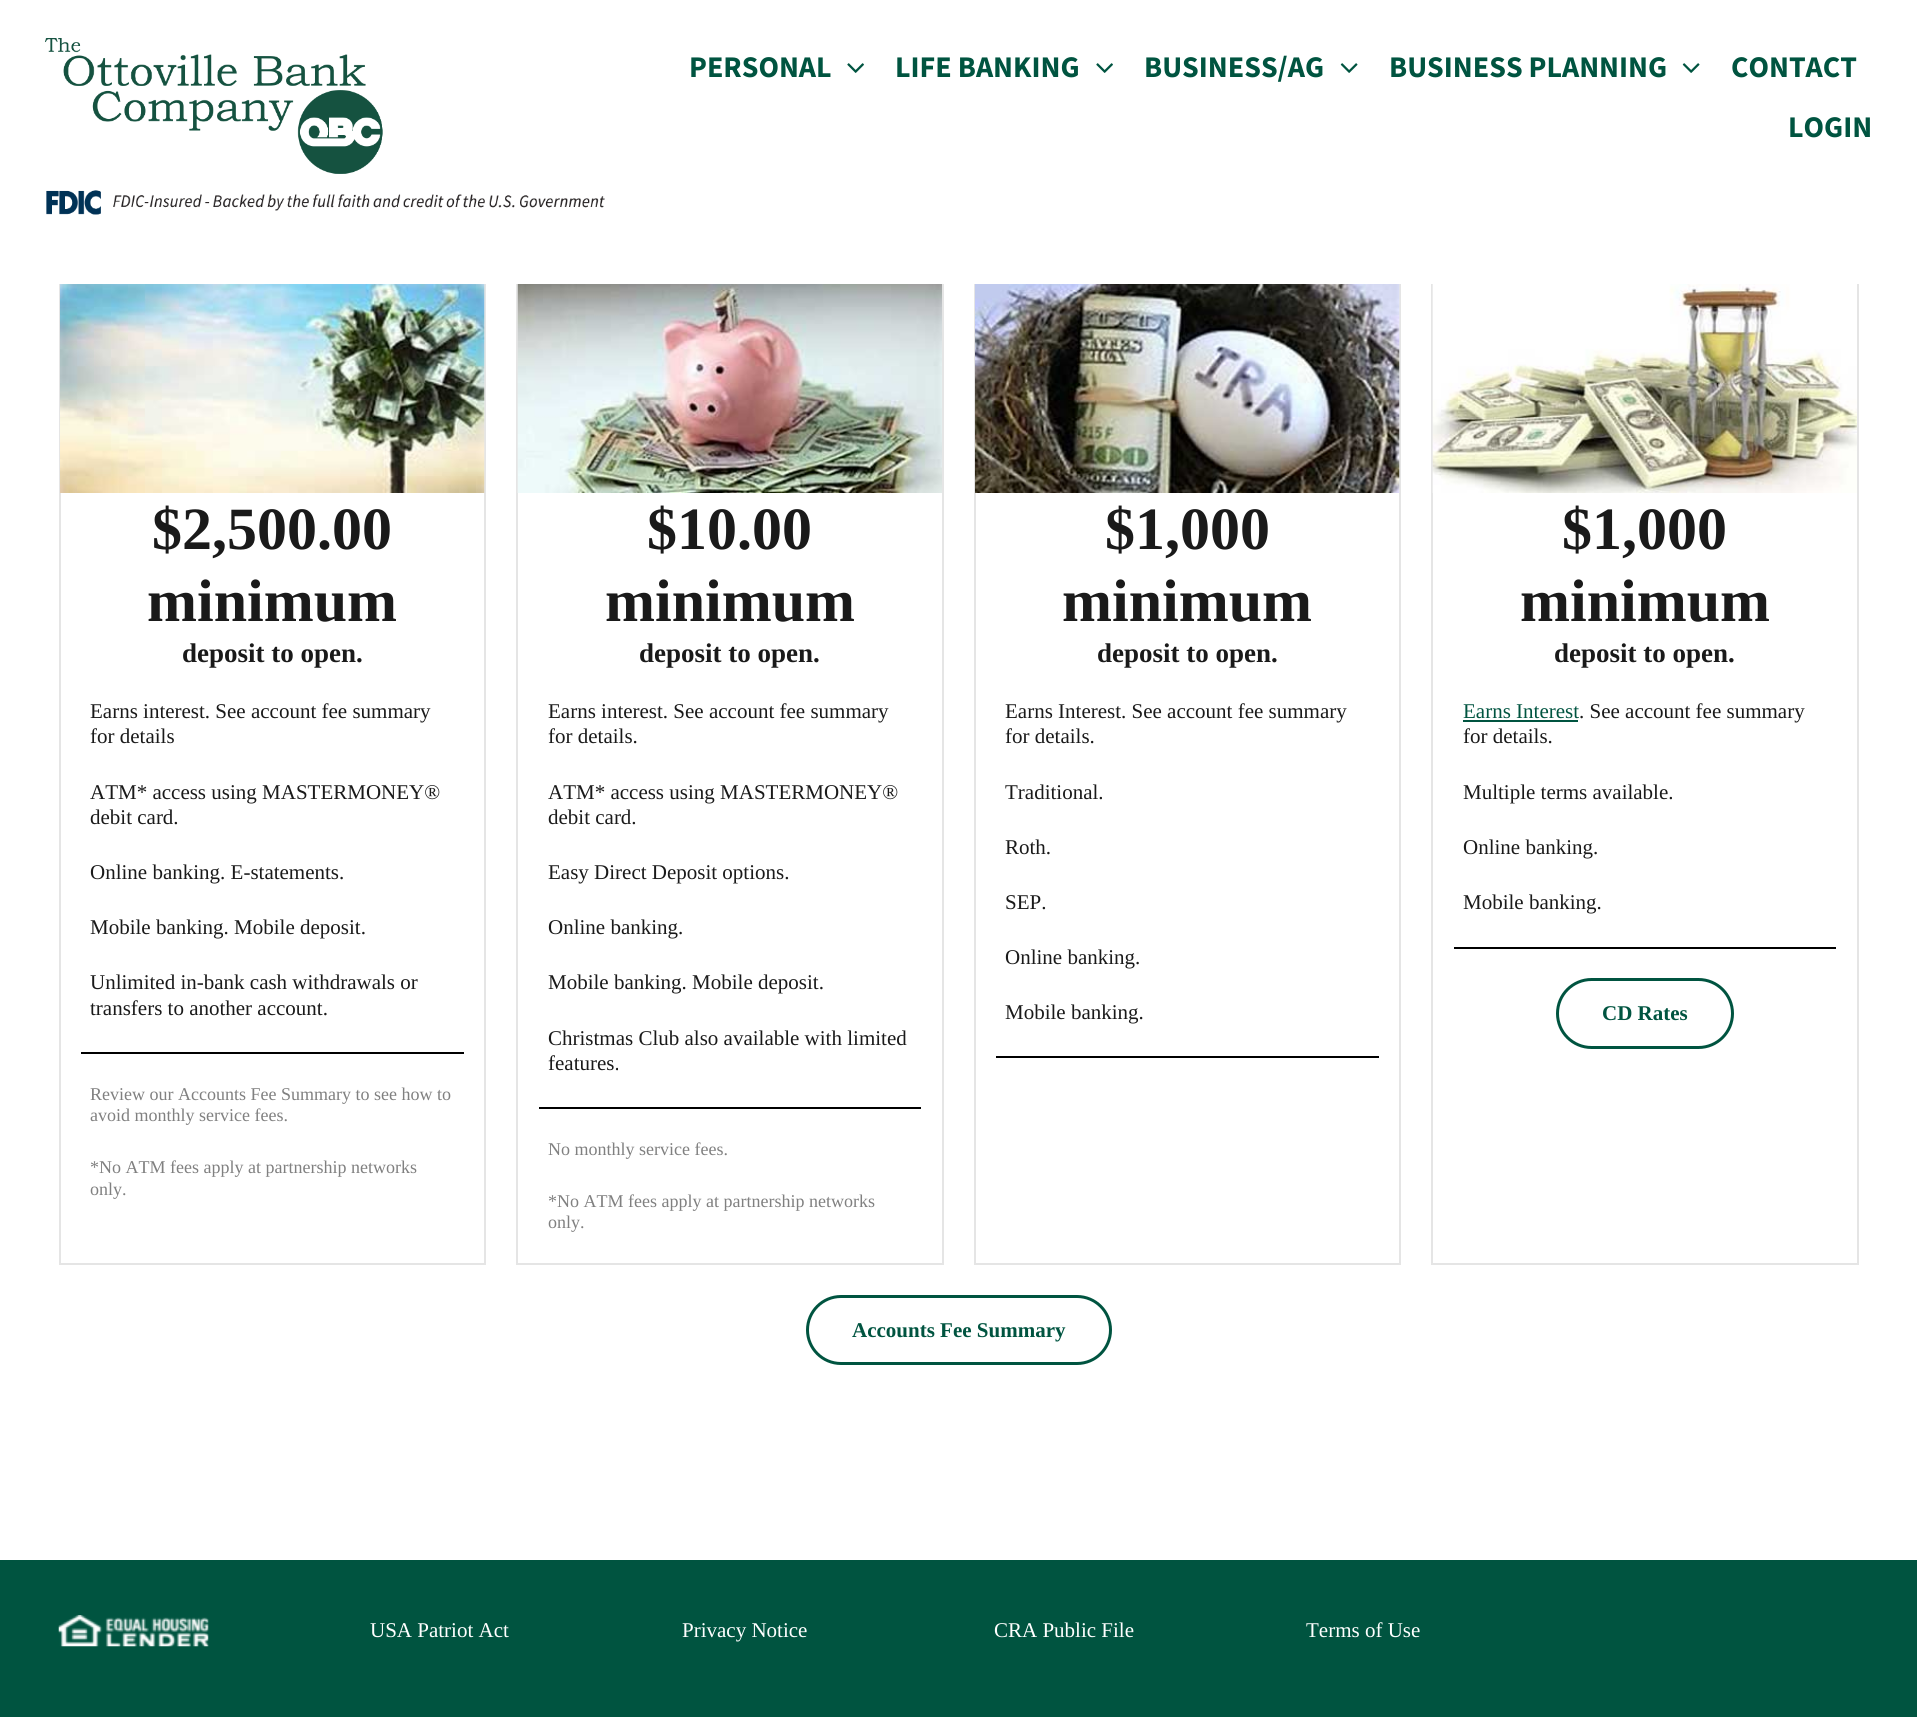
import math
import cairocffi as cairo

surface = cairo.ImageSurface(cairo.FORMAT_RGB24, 1917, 1717)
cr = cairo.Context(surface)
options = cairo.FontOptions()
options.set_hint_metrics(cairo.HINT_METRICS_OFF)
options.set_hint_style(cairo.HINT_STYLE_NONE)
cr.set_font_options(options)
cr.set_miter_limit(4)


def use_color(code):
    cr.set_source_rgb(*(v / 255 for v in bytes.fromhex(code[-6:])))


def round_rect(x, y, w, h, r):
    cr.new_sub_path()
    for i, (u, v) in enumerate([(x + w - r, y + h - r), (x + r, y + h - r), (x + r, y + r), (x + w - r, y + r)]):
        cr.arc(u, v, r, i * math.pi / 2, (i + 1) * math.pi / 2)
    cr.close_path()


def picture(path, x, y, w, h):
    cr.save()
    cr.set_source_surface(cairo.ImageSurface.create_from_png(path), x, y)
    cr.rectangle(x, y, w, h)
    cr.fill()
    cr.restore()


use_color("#ffffff")
cr.paint()
cr.rectangle(60, 201, 425, 1063)
use_color("#e5e5e5")
cr.stroke()
cr.rectangle(517, 201, 426, 1063)
cr.stroke()
cr.rectangle(975, 201, 425, 1063)
cr.stroke()
cr.rectangle(1432, 201, 426, 1063)
cr.stroke()
use_color("#ffffff")
cr.rectangle(59, 200, 1800, 84)
cr.fill()
picture("img1.png", 45, 38, 338, 136)
picture("img2.png", 46, 190, 559, 25)
cr.select_font_face("Source Sans 3 ExtraLight")
cr.set_font_size(30)
use_color("#005440")
cr.move_to(689, 77)
cr.show_text("PERSONAL")
picture("img3.png", 847, 63, 17, 10)
cr.move_to(895, 77)
cr.show_text("LIFE BANKING")
picture("img3.png", 1096, 63, 17, 10)
cr.move_to(1144, 77)
cr.show_text("BUSINESS/AG")
picture("img4.png", 1340, 63, 18, 10)
cr.move_to(1389, 77)
cr.show_text("BUSINESS PLANNING")
picture("img4.png", 1682, 63, 18, 10)
cr.move_to(1731, 77)
cr.show_text("CONTACT")
cr.move_to(1788, 137)
cr.show_text("LOGIN")
picture("img5.png", 60, 284, 425, 209)
cr.select_font_face("Liberation Serif", cairo.FONT_SLANT_NORMAL, cairo.FONT_WEIGHT_BOLD)
cr.set_font_size(60)
use_color("#1a1a1a")
cr.move_to(152, 549)
cr.show_text("$2,500.00")
cr.move_to(147, 621)
cr.show_text("minimum")
cr.set_font_size(27)
cr.move_to(182, 662)
cr.show_text("deposit to open.")
cr.select_font_face("Liberation Serif")
cr.set_font_size(21)
cr.move_to(90, 718)
cr.show_text("Earns interest. See account fee summary")
cr.move_to(90, 743)
cr.show_text("for details")
cr.move_to(90, 799)
cr.show_text("ATM* access using MASTERMONEY®")
cr.move_to(90, 824)
cr.show_text("debit card.")
cr.move_to(90, 879)
cr.show_text("Online banking. E-statements.")
cr.move_to(90, 934)
cr.show_text("Mobile banking. Mobile deposit.")
cr.move_to(90, 989)
cr.show_text("Unlimited in-bank cash withdrawals or")
cr.move_to(90, 1015)
cr.show_text("transfers to another account.")
use_color("#000000")
cr.rectangle(81, 1052, 383, 2)
cr.fill()
cr.set_font_size(18)
use_color("#808080")
cr.move_to(90, 1100)
cr.show_text("Review our Accounts Fee Summary to see how to")
cr.move_to(90, 1121)
cr.show_text("avoid monthly service fees.")
cr.move_to(90, 1173)
cr.show_text("*No ATM fees apply at partnership networks")
cr.move_to(90, 1195)
cr.show_text("only.")
picture("img6.png", 517, 284, 425, 209)
cr.select_font_face("Liberation Serif", cairo.FONT_SLANT_NORMAL, cairo.FONT_WEIGHT_BOLD)
cr.set_font_size(60)
use_color("#1a1a1a")
cr.move_to(647, 549)
cr.show_text("$10.00")
cr.move_to(605, 621)
cr.show_text("minimum")
cr.set_font_size(27)
cr.move_to(639, 662)
cr.show_text("deposit to open.")
cr.select_font_face("Liberation Serif")
cr.set_font_size(21)
cr.move_to(548, 718)
cr.show_text("Earns interest. See account fee summary")
cr.move_to(548, 743)
cr.show_text("for details.")
cr.move_to(548, 799)
cr.show_text("ATM* access using MASTERMONEY®")
cr.move_to(548, 824)
cr.show_text("debit card.")
cr.move_to(548, 879)
cr.show_text("Easy Direct Deposit options.")
cr.move_to(548, 934)
cr.show_text("Online banking.")
cr.move_to(548, 989)
cr.show_text("Mobile banking. Mobile deposit.")
cr.move_to(548, 1045)
cr.show_text("Christmas Club also available with limited")
cr.move_to(548, 1070)
cr.show_text("features.")
use_color("#000000")
cr.rectangle(539, 1107, 382, 2)
cr.fill()
cr.set_font_size(18)
use_color("#808080")
cr.move_to(548, 1155)
cr.show_text("No monthly service fees.")
cr.move_to(548, 1207)
cr.show_text("*No ATM fees apply at partnership networks")
cr.move_to(548, 1228)
cr.show_text("only.")
picture("img7.png", 975, 284, 425, 209)
cr.select_font_face("Liberation Serif", cairo.FONT_SLANT_NORMAL, cairo.FONT_WEIGHT_BOLD)
cr.set_font_size(60)
use_color("#1a1a1a")
cr.move_to(1105, 549)
cr.show_text("$1,000")
cr.move_to(1062, 621)
cr.show_text("minimum")
cr.set_font_size(27)
cr.move_to(1097, 662)
cr.show_text("deposit to open.")
cr.select_font_face("Liberation Serif")
cr.set_font_size(21)
cr.move_to(1005, 718)
cr.show_text("Earns Interest. See account fee summary")
cr.move_to(1005, 743)
cr.show_text("for details.")
cr.move_to(1005, 799)
cr.show_text("Traditional.")
cr.move_to(1005, 854)
cr.show_text("Roth.")
cr.move_to(1005, 909)
cr.show_text("SEP.")
cr.move_to(1005, 964)
cr.show_text("Online banking.")
cr.move_to(1005, 1019)
cr.show_text("Mobile banking.")
use_color("#000000")
cr.rectangle(996, 1056, 383, 2)
cr.fill()
picture("img8.png", 1432, 284, 425, 209)
cr.select_font_face("Liberation Serif", cairo.FONT_SLANT_NORMAL, cairo.FONT_WEIGHT_BOLD)
cr.set_font_size(60)
use_color("#1a1a1a")
cr.move_to(1562, 549)
cr.show_text("$1,000")
cr.move_to(1520, 621)
cr.show_text("minimum")
cr.set_font_size(27)
cr.move_to(1554, 662)
cr.show_text("deposit to open.")
cr.select_font_face("Liberation Serif")
cr.set_font_size(21)
use_color("#005440")
cr.move_to(1463, 718)
cr.show_text("Earns Interest")
cr.rectangle(1463, 720, 115, 2)
cr.fill()
use_color("#1a1a1a")
cr.move_to(1579, 718)
cr.show_text(". See account fee summary")
cr.move_to(1463, 743)
cr.show_text("for details.")
cr.move_to(1463, 799)
cr.show_text("Multiple terms available.")
cr.move_to(1463, 854)
cr.show_text("Online banking.")
cr.move_to(1463, 909)
cr.show_text("Mobile banking.")
use_color("#000000")
cr.rectangle(1454, 947, 382, 2)
cr.fill()
round_rect(1557.5, 979.5, 175, 68, 34)
use_color("#005440")
cr.set_line_width(3)
cr.stroke()
cr.select_font_face("Liberation Serif", cairo.FONT_SLANT_NORMAL, cairo.FONT_WEIGHT_BOLD)
cr.move_to(1602, 1020)
cr.show_text("CD Rates")
round_rect(807.5, 1296.5, 303, 67, 33.5)
cr.stroke()
cr.move_to(852, 1337)
cr.show_text("Accounts Fee Summary")
cr.rectangle(0, 1560, 1917, 157)
cr.fill()
picture("img9.png", 58, 1615, 151, 32)
cr.select_font_face("Liberation Serif")
use_color("#ffffff")
cr.move_to(370, 1637)
cr.show_text("USA Patriot Act")
cr.move_to(682, 1637)
cr.show_text("Privacy Notice")
cr.move_to(994, 1637)
cr.show_text("CRA Public File")
cr.move_to(1306, 1637)
cr.show_text("Terms of Use")
surface.write_to_png("result.png")
